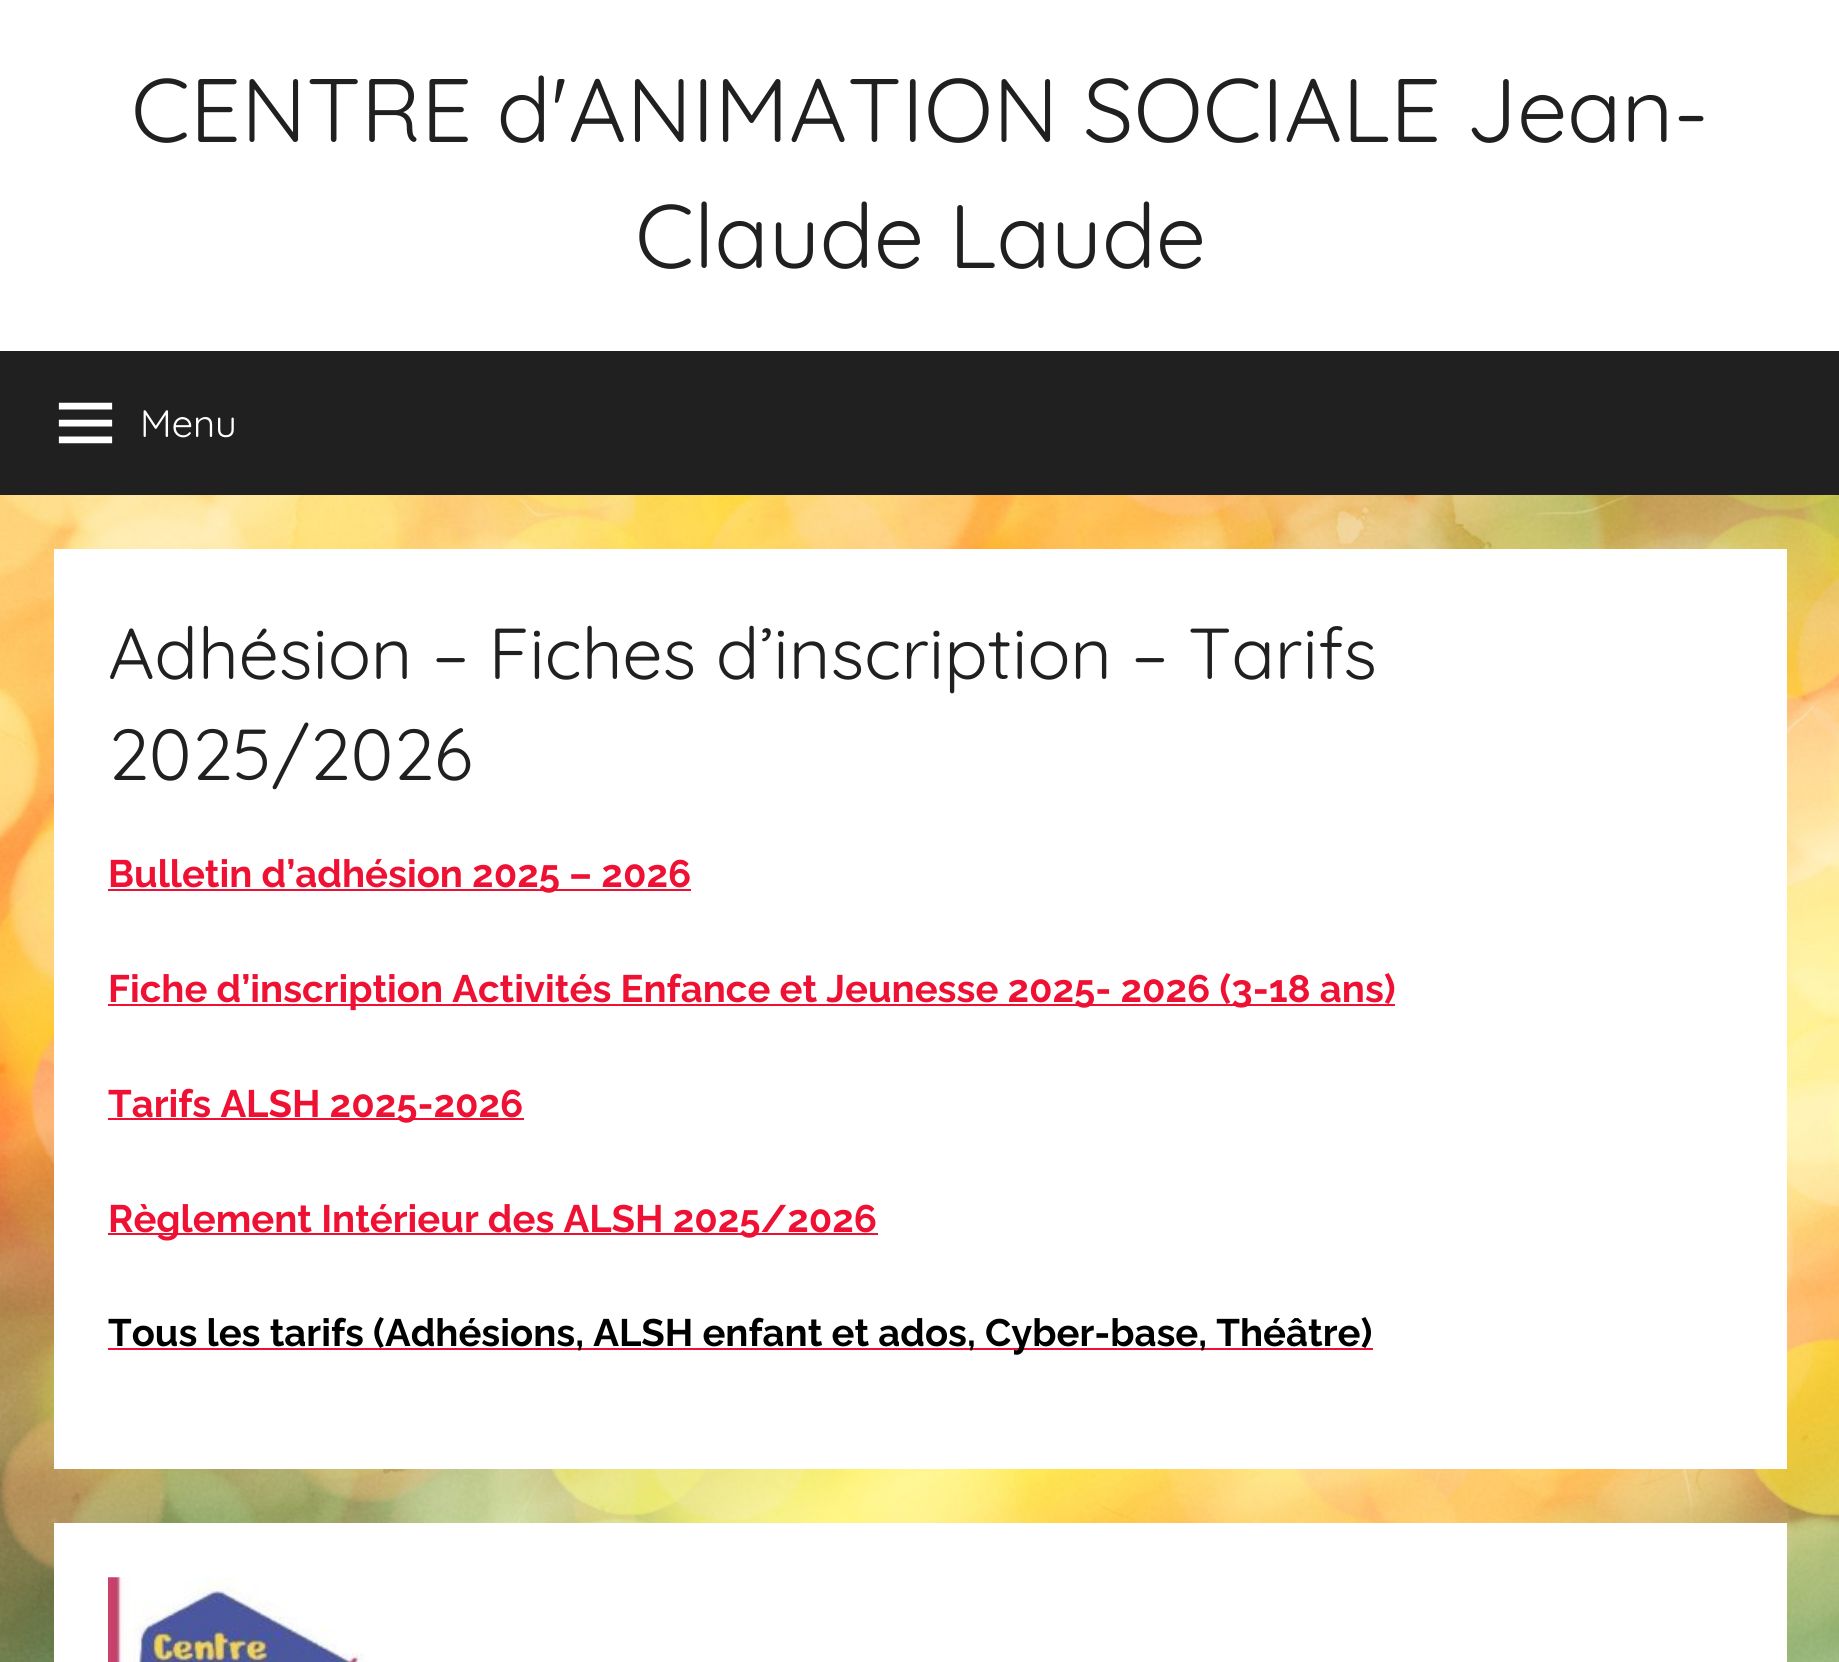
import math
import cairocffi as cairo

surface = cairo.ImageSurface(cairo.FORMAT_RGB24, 1839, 1662)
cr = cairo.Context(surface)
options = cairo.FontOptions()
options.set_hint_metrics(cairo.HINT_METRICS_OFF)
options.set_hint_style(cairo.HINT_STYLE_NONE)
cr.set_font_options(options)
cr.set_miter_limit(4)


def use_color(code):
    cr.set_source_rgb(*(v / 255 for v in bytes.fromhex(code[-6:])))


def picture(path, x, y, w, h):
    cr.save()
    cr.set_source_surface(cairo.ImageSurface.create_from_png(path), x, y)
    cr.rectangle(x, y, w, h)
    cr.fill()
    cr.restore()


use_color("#ffffff")
cr.paint()
picture("img1.png", 0, 495, 1839, 1167)
cr.select_font_face("Quicksand Light")
cr.set_font_size(90)
use_color("#202020")
cr.move_to(131, 142)
cr.show_text("CENTRE d'ANIMATION SOCIALE Jean-")
cr.move_to(635, 268)
cr.show_text("Claude Laude")
cr.rectangle(0, 351, 1839, 144)
cr.fill()
picture("img2.png", 58, 402, 55, 42)
cr.set_font_size(38.25)
use_color("#ffffff")
cr.move_to(140, 437)
cr.show_text("Menu")
cr.rectangle(54, 549, 1733, 920)
cr.fill()
cr.set_font_size(72)
use_color("#202020")
cr.move_to(108, 679)
cr.show_text("Adhésion – Fiches d’inscription – Tarifs")
cr.move_to(108, 780)
cr.show_text("2025/2026")
use_color("#ee1133")
cr.rectangle(108, 889, 583, 2)
cr.fill()
cr.select_font_face("Raleway Thin")
cr.set_font_size(38.25)
cr.move_to(108, 887)
cr.show_text("Bulletin d’adhésion 2025 – 2026")
cr.rectangle(108, 1004, 1287, 2)
cr.fill()
cr.move_to(108, 1002)
cr.show_text("Fiche d’inscription Activités Enfance et Jeunesse 2025- 2026 (3-18 ans)")
cr.rectangle(108, 1118, 416, 2)
cr.fill()
cr.move_to(108, 1117)
cr.show_text("Tarifs ALSH 2025-2026")
cr.rectangle(108, 1233, 770, 2)
cr.fill()
cr.move_to(108, 1232)
cr.show_text("Règlement Intérieur des ALSH 2025/2026")
cr.rectangle(108, 1348, 1265, 2)
cr.fill()
use_color("#000000")
cr.move_to(108, 1346)
cr.show_text("Tous les tarifs (Adhésions, ALSH enfant et ados, Cyber-base, Théâtre)")
use_color("#ffffff")
cr.rectangle(54, 1523, 1733, 139)
cr.fill()
picture("img3.png", 108, 1577, 257, 85)
surface.write_to_png("result.png")
